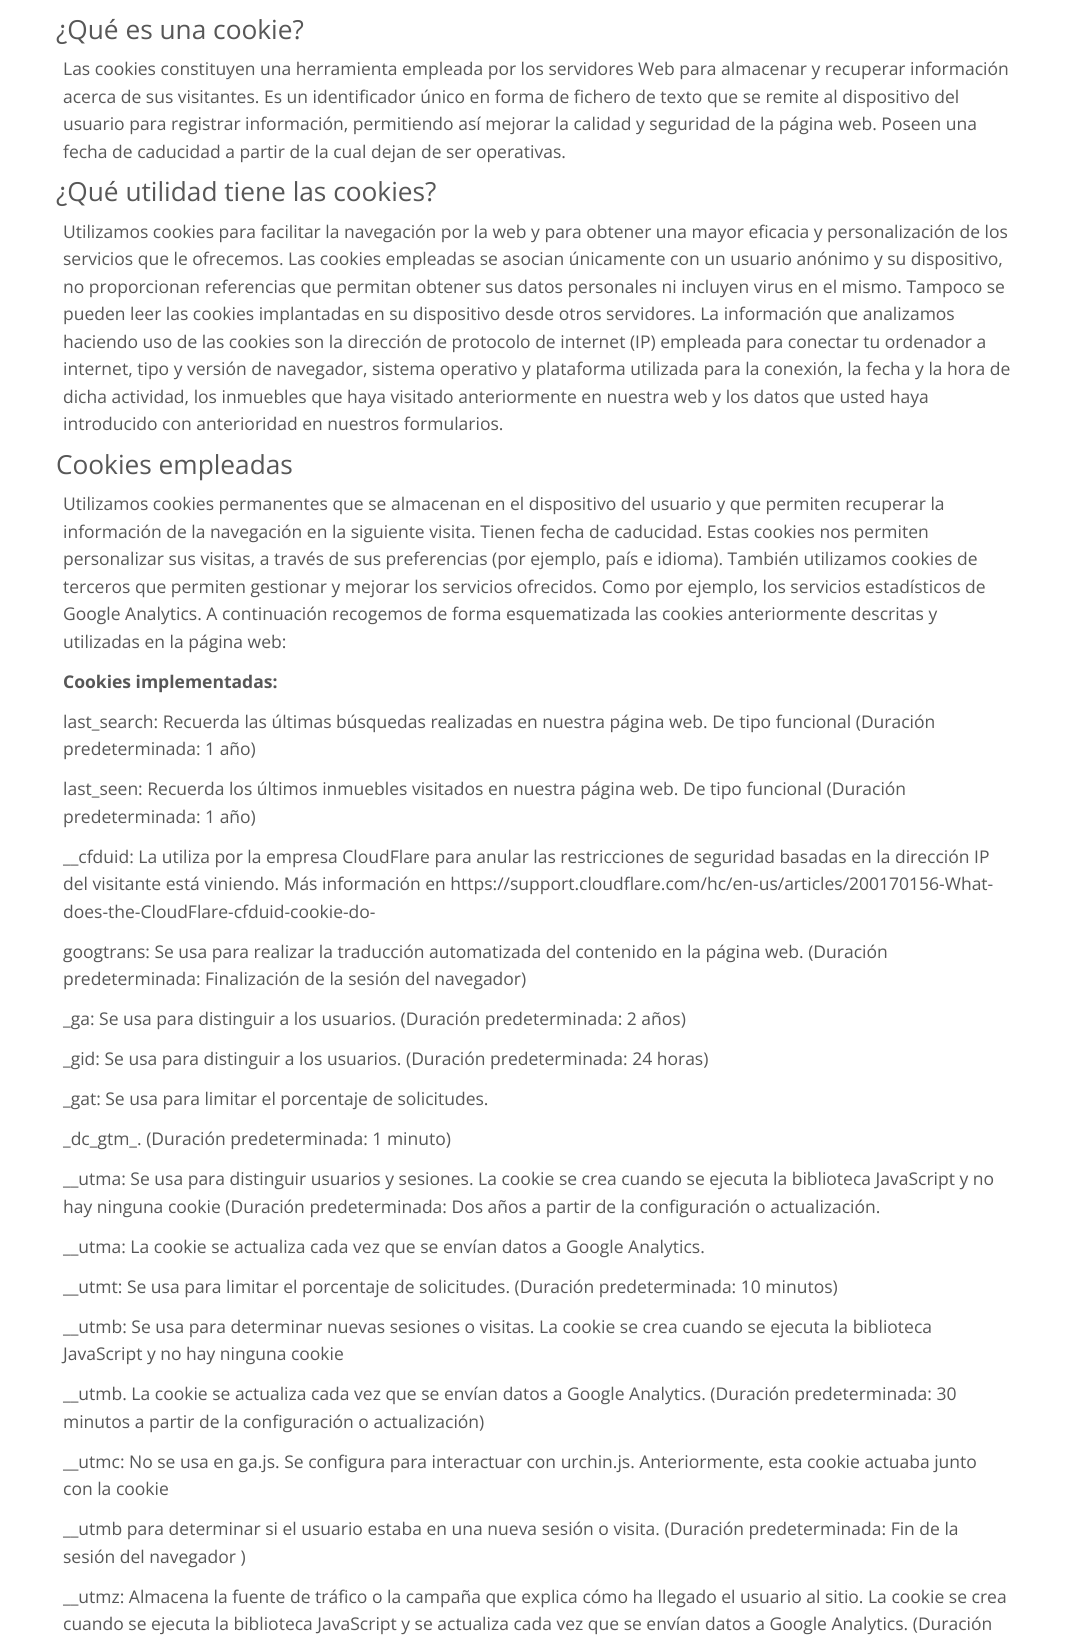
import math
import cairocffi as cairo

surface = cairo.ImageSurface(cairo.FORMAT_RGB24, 1072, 1650)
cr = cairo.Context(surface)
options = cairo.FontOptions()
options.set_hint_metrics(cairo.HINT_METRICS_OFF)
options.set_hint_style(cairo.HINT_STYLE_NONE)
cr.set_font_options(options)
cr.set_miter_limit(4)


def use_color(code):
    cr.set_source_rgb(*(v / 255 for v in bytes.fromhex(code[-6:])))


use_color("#ffffff")
cr.paint()
cr.select_font_face("Open Sans")
cr.set_font_size(26.25)
use_color("#575757")
cr.move_to(56, 39)
cr.show_text("¿Qué es una cookie?")
cr.set_font_size(17.5)
cr.move_to(63, 75)
cr.show_text("Las cookies constituyen una herramienta empleada por los servidores Web para almacenar y recuperar información")
cr.move_to(63, 103)
cr.show_text("acerca de sus visitantes. Es un identificador único en forma de fichero de texto que se remite al dispositivo del")
cr.move_to(63, 130)
cr.show_text("usuario para registrar información, permitiendo así mejorar la calidad y seguridad de la página web. Poseen una")
cr.move_to(63, 158)
cr.show_text("fecha de caducidad a partir de la cual dejan de ser operativas.")
cr.set_font_size(26.25)
cr.move_to(56, 201)
cr.show_text("¿Qué utilidad tiene las cookies?")
cr.set_font_size(17.5)
cr.move_to(63, 238)
cr.show_text("Utilizamos cookies para facilitar la navegación por la web y para obtener una mayor eficacia y personalización de los")
cr.move_to(63, 265)
cr.show_text("servicios que le ofrecemos. Las cookies empleadas se asocian únicamente con un usuario anónimo y su dispositivo,")
cr.move_to(63, 293)
cr.show_text("no proporcionan referencias que permitan obtener sus datos personales ni incluyen virus en el mismo. Tampoco se")
cr.move_to(63, 320)
cr.show_text("pueden leer las cookies implantadas en su dispositivo desde otros servidores. La información que analizamos")
cr.move_to(63, 348)
cr.show_text("haciendo uso de las cookies son la dirección de protocolo de internet (IP) empleada para conectar tu ordenador a")
cr.move_to(63, 375)
cr.show_text("internet, tipo y versión de navegador, sistema operativo y plataforma utilizada para la conexión, la fecha y la hora de")
cr.move_to(63, 403)
cr.show_text("dicha actividad, los inmuebles que haya visitado anteriormente en nuestra web y los datos que usted haya")
cr.move_to(63, 430)
cr.show_text("introducido con anterioridad en nuestros formularios.")
cr.set_font_size(26.25)
cr.move_to(56, 474)
cr.show_text("Cookies empleadas")
cr.set_font_size(17.5)
cr.move_to(63, 510)
cr.show_text("Utilizamos cookies permanentes que se almacenan en el dispositivo del usuario y que permiten recuperar la")
cr.move_to(63, 538)
cr.show_text("información de la navegación en la siguiente visita. Tienen fecha de caducidad. Estas cookies nos permiten")
cr.move_to(63, 565)
cr.show_text("personalizar sus visitas, a través de sus preferencias (por ejemplo, país e idioma). También utilizamos cookies de")
cr.move_to(63, 593)
cr.show_text("terceros que permiten gestionar y mejorar los servicios ofrecidos. Como por ejemplo, los servicios estadísticos de")
cr.move_to(63, 620)
cr.show_text("Google Analytics. A continuación recogemos de forma esquematizada las cookies anteriormente descritas y")
cr.move_to(63, 648)
cr.show_text("utilizadas en la página web:")
cr.select_font_face("Open Sans", cairo.FONT_SLANT_NORMAL, cairo.FONT_WEIGHT_BOLD)
cr.move_to(63, 688)
cr.show_text("Cookies implementadas:")
cr.select_font_face("Open Sans")
cr.move_to(63, 728)
cr.show_text("last_search: Recuerda las últimas búsquedas realizadas en nuestra página web. De tipo funcional (Duración")
cr.move_to(63, 755)
cr.show_text("predeterminada: 1 año)")
cr.move_to(63, 795)
cr.show_text("last_seen: Recuerda los últimos inmuebles visitados en nuestra página web. De tipo funcional (Duración")
cr.move_to(63, 823)
cr.show_text("predeterminada: 1 año)")
cr.move_to(63, 863)
cr.show_text("__cfduid: La utiliza por la empresa CloudFlare para anular las restricciones de seguridad basadas en la dirección IP")
cr.move_to(63, 890)
cr.show_text("del visitante está viniendo. Más información en https://support.cloudflare.com/hc/en-us/articles/200170156-What-")
cr.move_to(63, 918)
cr.show_text("does-the-CloudFlare-cfduid-cookie-do-")
cr.move_to(63, 958)
cr.show_text("googtrans: Se usa para realizar la traducción automatizada del contenido en la página web. (Duración")
cr.move_to(63, 985)
cr.show_text("predeterminada: Finalización de la sesión del navegador)")
cr.move_to(63, 1025)
cr.show_text("_ga: Se usa para distinguir a los usuarios. (Duración predeterminada: 2 años)")
cr.move_to(63, 1065)
cr.show_text("_gid: Se usa para distinguir a los usuarios. (Duración predeterminada: 24 horas)")
cr.move_to(63, 1105)
cr.show_text("_gat: Se usa para limitar el porcentaje de solicitudes.")
cr.move_to(63, 1145)
cr.show_text("_dc_gtm_. (Duración predeterminada: 1 minuto)")
cr.move_to(63, 1185)
cr.show_text("__utma: Se usa para distinguir usuarios y sesiones. La cookie se crea cuando se ejecuta la biblioteca JavaScript y no")
cr.move_to(63, 1213)
cr.show_text("hay ninguna cookie (Duración predeterminada: Dos años a partir de la configuración o actualización.")
cr.move_to(63, 1253)
cr.show_text("__utma: La cookie se actualiza cada vez que se envían datos a Google Analytics.")
cr.move_to(63, 1293)
cr.show_text("__utmt: Se usa para limitar el porcentaje de solicitudes. (Duración predeterminada: 10 minutos)")
cr.move_to(63, 1333)
cr.show_text("__utmb: Se usa para determinar nuevas sesiones o visitas. La cookie se crea cuando se ejecuta la biblioteca")
cr.move_to(63, 1360)
cr.show_text("JavaScript y no hay ninguna cookie")
cr.move_to(63, 1400)
cr.show_text("__utmb. La cookie se actualiza cada vez que se envían datos a Google Analytics. (Duración predeterminada: 30")
cr.move_to(63, 1428)
cr.show_text("minutos a partir de la configuración o actualización)")
cr.move_to(63, 1468)
cr.show_text("__utmc: No se usa en ga.js. Se configura para interactuar con urchin.js. Anteriormente, esta cookie actuaba junto")
cr.move_to(63, 1495)
cr.show_text("con la cookie")
cr.move_to(63, 1535)
cr.show_text("__utmb para determinar si el usuario estaba en una nueva sesión o visita. (Duración predeterminada: Fin de la")
cr.move_to(63, 1563)
cr.show_text("sesión del navegador )")
cr.move_to(63, 1603)
cr.show_text("__utmz: Almacena la fuente de tráfico o la campaña que explica cómo ha llegado el usuario al sitio. La cookie se crea")
cr.move_to(63, 1630)
cr.show_text("cuando se ejecuta la biblioteca JavaScript y se actualiza cada vez que se envían datos a Google Analytics. (Duración")
surface.write_to_png("result.png")
